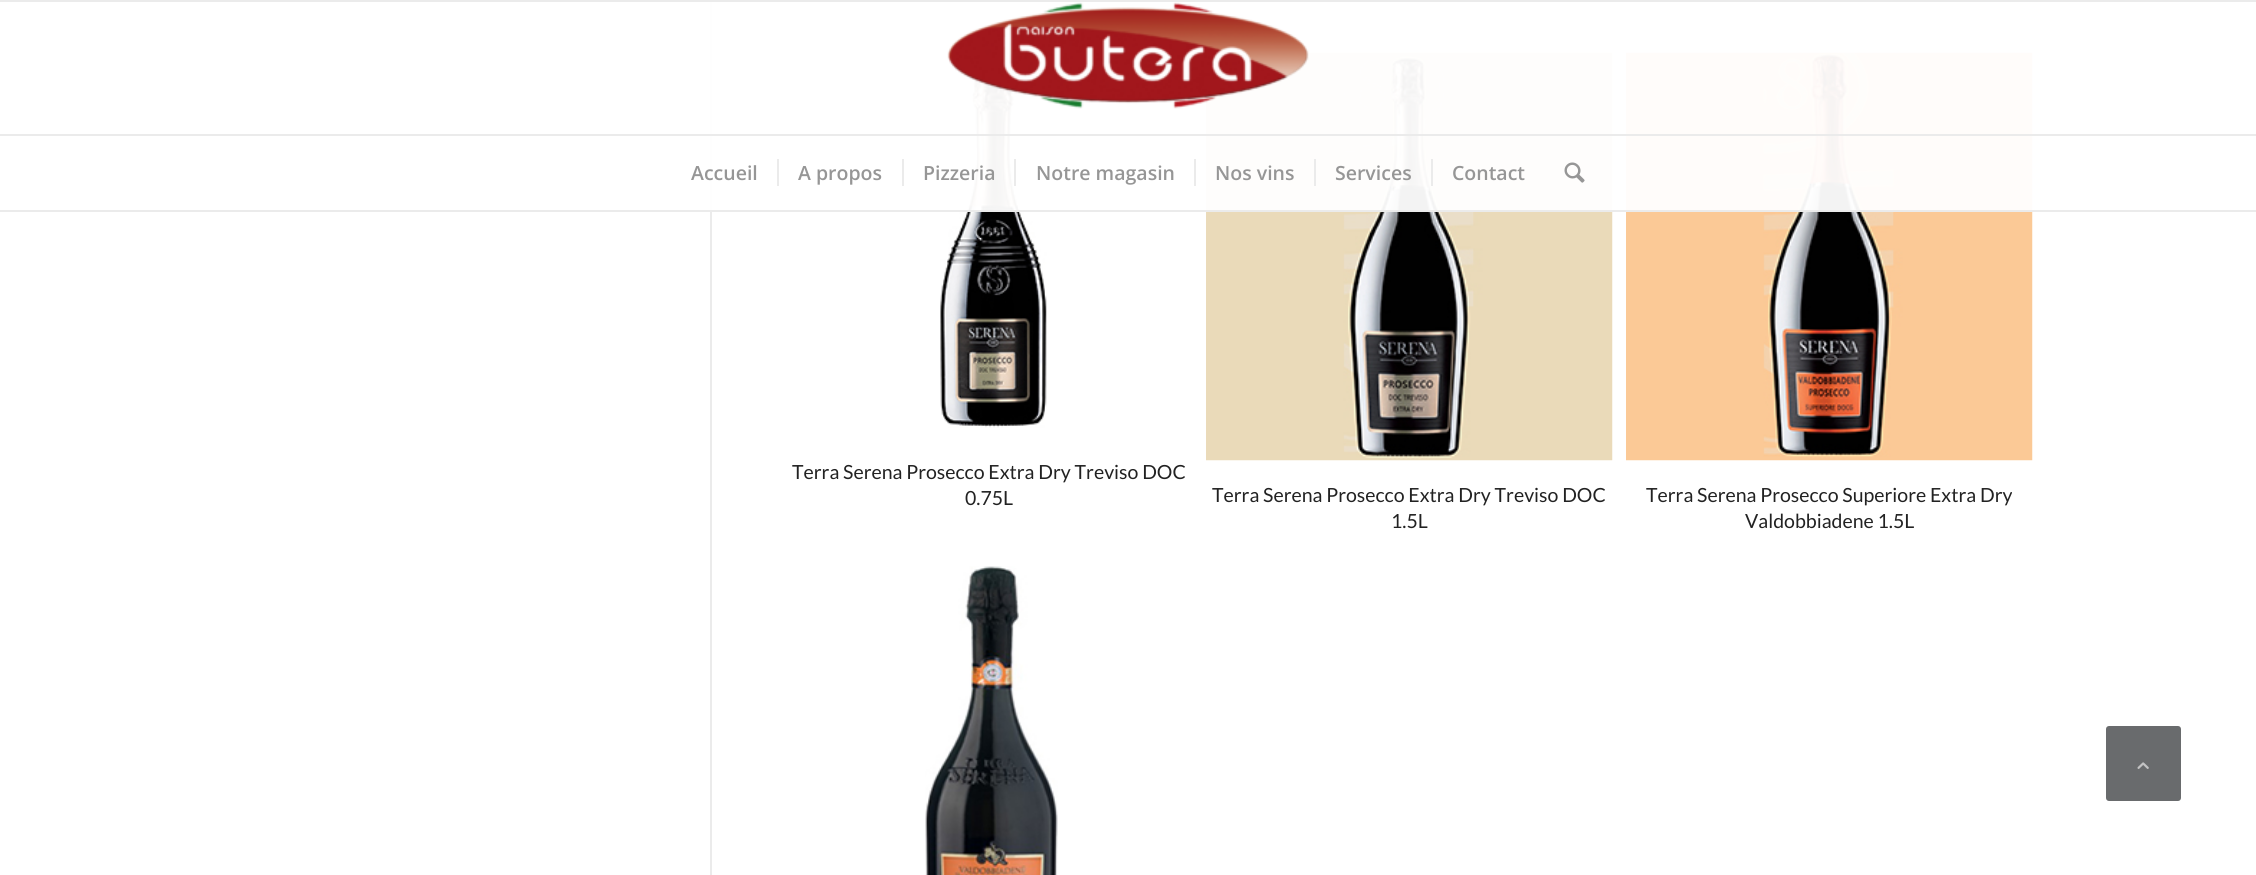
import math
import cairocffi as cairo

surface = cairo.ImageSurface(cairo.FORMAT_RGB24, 2256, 875)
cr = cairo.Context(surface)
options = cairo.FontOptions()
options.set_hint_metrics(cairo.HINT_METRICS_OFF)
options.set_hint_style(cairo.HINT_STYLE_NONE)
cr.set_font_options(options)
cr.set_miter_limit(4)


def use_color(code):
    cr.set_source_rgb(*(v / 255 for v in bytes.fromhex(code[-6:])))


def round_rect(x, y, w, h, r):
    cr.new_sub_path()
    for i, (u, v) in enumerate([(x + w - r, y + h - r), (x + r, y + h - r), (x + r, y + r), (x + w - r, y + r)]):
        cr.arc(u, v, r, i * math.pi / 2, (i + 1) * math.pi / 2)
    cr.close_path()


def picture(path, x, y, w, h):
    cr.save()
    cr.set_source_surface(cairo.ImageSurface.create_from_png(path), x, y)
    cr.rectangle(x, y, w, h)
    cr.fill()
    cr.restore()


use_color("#ffffff")
cr.paint()
use_color("#ebebeb")
cr.rectangle(710, 0, 2, 875)
cr.fill()
picture("img3.png", 940, 57, 107, 371)
picture("img4.png", 1206, 52, 407, 409)
picture("img5.png", 1626, 52, 407, 409)
cr.set_source_rgba(1, 1, 1, 0.95)
cr.rectangle(710, 2, 1323, 208)
cr.fill()
use_color("#ebebeb")
cr.rectangle(0, 0, 2256, 2)
cr.fill()
cr.rectangle(0, 210, 2256, 2)
cr.fill()
picture("img1.png", 947, 2, 362, 107)
cr.rectangle(0, 134, 2256, 2)
cr.fill()
cr.select_font_face("Open Sans SemiBold")
cr.set_font_size(19.5)
use_color("#969696")
cr.move_to(691, 180)
cr.show_text("Accueil")
cr.move_to(798, 180)
cr.show_text("A propos")
use_color("#ebebeb")
cr.rectangle(777, 159, 2, 27)
cr.fill()
use_color("#969696")
cr.move_to(923, 180)
cr.show_text("Pizzeria")
use_color("#ebebeb")
cr.rectangle(902, 159, 2, 27)
cr.fill()
use_color("#969696")
cr.move_to(1036, 180)
cr.show_text("Notre magasin")
use_color("#ebebeb")
cr.rectangle(1014, 159, 2, 27)
cr.fill()
use_color("#969696")
cr.move_to(1215, 180)
cr.show_text("Nos vins")
use_color("#ebebeb")
cr.rectangle(1194, 159, 2, 27)
cr.fill()
use_color("#969696")
cr.move_to(1335, 180)
cr.show_text("Services")
use_color("#ebebeb")
cr.rectangle(1314, 159, 2, 27)
cr.fill()
use_color("#969696")
cr.move_to(1452, 180)
cr.show_text("Contact")
use_color("#ebebeb")
cr.rectangle(1431, 159, 2, 27)
cr.fill()
picture("img2.png", 1564, 162, 21, 21)
cr.select_font_face("Lato")
use_color("#222222")
cr.move_to(792, 479)
cr.show_text("Terra Serena Prosecco Extra Dry Treviso DOC")
cr.move_to(965, 505)
cr.show_text("0.75L")
cr.move_to(1212, 502)
cr.show_text("Terra Serena Prosecco Extra Dry Treviso DOC")
cr.move_to(1391, 528)
cr.show_text("1.5L")
cr.move_to(1646, 502)
cr.show_text("Terra Serena Prosecco Superiore Extra Dry")
cr.move_to(1745, 528)
cr.show_text("Valdobbiadene 1.5L")
picture("img6.png", 925, 566, 133, 309)
use_color("#696b6d")
round_rect(2107, 727, 73, 73, 2)
cr.fill_preserve()
cr.stroke()
picture("img7.png", 2137, 762, 12, 7)
surface.write_to_png("result.png")
